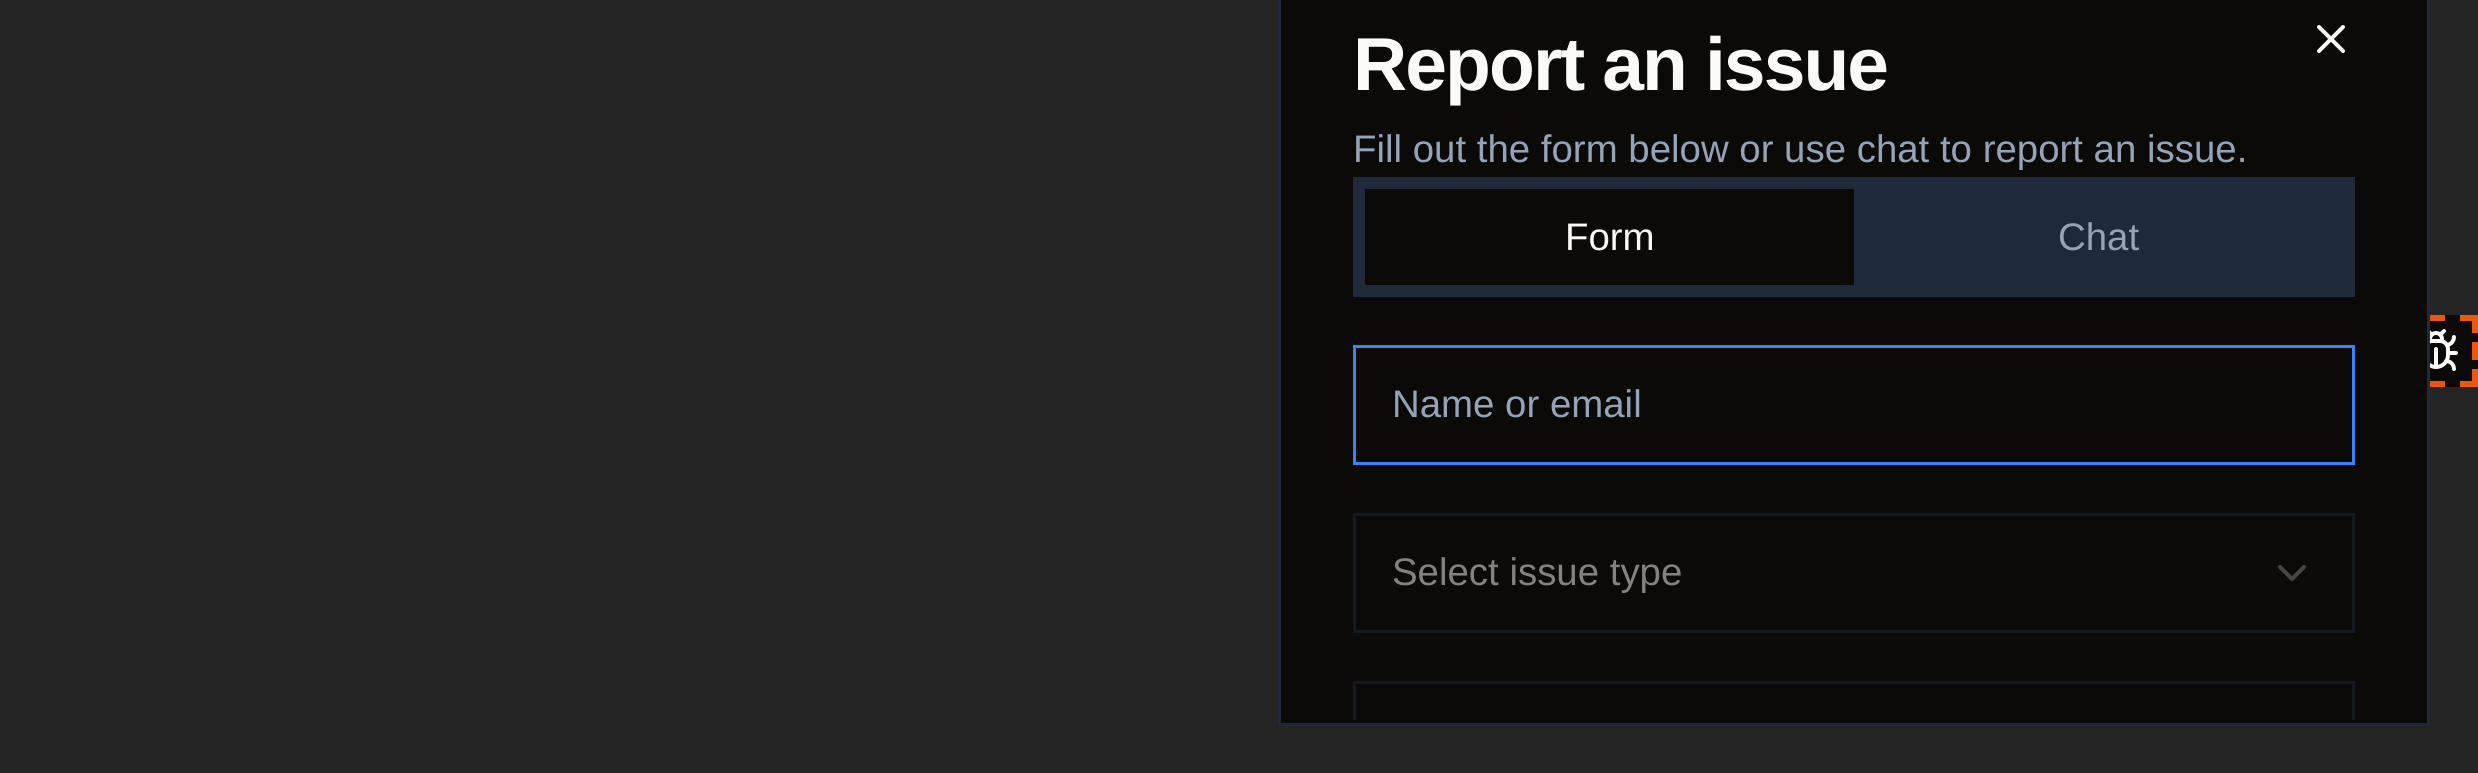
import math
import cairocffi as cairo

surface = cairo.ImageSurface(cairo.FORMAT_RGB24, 2478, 773)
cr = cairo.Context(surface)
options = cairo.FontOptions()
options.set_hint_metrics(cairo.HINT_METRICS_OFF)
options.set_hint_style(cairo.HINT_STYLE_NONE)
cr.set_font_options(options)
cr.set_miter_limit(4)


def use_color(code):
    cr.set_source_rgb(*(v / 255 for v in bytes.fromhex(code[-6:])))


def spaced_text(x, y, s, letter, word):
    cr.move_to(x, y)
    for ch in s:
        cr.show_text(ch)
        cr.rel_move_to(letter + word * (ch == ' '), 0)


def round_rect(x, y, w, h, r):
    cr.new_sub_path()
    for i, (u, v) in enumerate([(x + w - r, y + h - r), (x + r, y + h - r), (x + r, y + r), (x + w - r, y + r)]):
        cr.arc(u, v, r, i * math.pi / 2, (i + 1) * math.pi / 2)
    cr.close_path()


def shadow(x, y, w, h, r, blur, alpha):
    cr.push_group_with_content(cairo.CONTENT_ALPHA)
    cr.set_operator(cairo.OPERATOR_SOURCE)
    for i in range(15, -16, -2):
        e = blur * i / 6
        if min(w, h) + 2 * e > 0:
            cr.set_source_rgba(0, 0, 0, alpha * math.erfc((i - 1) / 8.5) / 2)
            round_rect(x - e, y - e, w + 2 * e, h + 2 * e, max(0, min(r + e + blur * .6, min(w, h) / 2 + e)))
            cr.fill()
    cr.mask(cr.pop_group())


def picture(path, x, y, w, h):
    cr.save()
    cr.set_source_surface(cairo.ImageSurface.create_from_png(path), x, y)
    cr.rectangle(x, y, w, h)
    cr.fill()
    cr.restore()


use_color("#242424")
cr.paint()
use_color("#0c0a09")
cr.rectangle(2430, 315, 48, 72)
cr.fill()
cr.new_path()
cr.move_to(2394, 318)
cr.line_to(2412, 318)
cr.move_to(2427, 318)
cr.line_to(2445, 318)
cr.move_to(2460, 318)
cr.line_to(2478, 318)
use_color("#ea580c")
cr.set_line_width(6)
cr.stroke()
cr.new_path()
cr.move_to(2475, 315)
cr.line_to(2475, 333)
cr.move_to(2475, 342)
cr.line_to(2475, 360)
cr.move_to(2475, 369)
cr.line_to(2475, 387)
cr.stroke()
cr.new_path()
cr.move_to(2394, 384)
cr.line_to(2412, 384)
cr.move_to(2427, 384)
cr.line_to(2445, 384)
cr.move_to(2460, 384)
cr.line_to(2478, 384)
cr.stroke()
picture("img1.png", 2430, 329, 28, 42)
use_color("#000000")
shadow(1278, -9, 1152, 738, 0, 3, 0.05)
use_color("#0c0a09")
cr.rectangle(1279.5, -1.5, 1149, 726)
cr.fill_preserve()
use_color("#1e293b")
cr.set_line_width(3)
cr.stroke()
cr.select_font_face("Liberation Sans", cairo.FONT_SLANT_NORMAL, cairo.FONT_WEIGHT_BOLD)
cr.set_font_size(75)
use_color("#fafaf9")
spaced_text(1353, 90, "Report an issue", -1.9, 0)
cr.select_font_face("Liberation Sans")
cr.set_font_size(38.4)
use_color("#94a3b8")
cr.move_to(1353, 162)
cr.show_text("Fill out the form below or use chat to report an issue.")
cr.new_path()
cr.move_to(2343, 27)
cr.line_to(2319, 51)
cr.move_to(2319, 27)
cr.line_to(2343, 51)
use_color("#fafaf9")
cr.set_line_width(4)
cr.set_line_cap(cairo.LINE_CAP_ROUND)
cr.set_line_join(cairo.LINE_JOIN_ROUND)
cr.stroke()
use_color("#1e293b")
cr.rectangle(1353, 177, 1002, 120)
cr.fill()
use_color("#0c0a09")
cr.rectangle(1365, 189, 489, 96)
cr.fill()
use_color("#fafaf9")
cr.move_to(1565, 250)
cr.show_text("Form")
use_color("#94a3b8")
cr.move_to(2058, 250)
cr.show_text("Chat")
cr.rectangle(1354.5, 346.5, 999, 117)
use_color("#3b82f6")
cr.set_line_width(3)
cr.set_line_cap(cairo.LINE_CAP_BUTT)
cr.set_line_join(cairo.LINE_JOIN_MITER)
cr.stroke()
use_color("#94a3b8")
cr.move_to(1392, 417)
cr.show_text("Name or email")
cr.rectangle(1354.5, 514.5, 999, 117)
use_color("#151a22")
cr.stroke()
use_color("#838281")
cr.move_to(1392, 585)
cr.show_text("Select issue type")
cr.new_path()
cr.move_to(2280, 567)
cr.line_to(2292, 579)
cr.line_to(2304, 567)
use_color("#484645")
cr.set_line_width(4)
cr.set_line_cap(cairo.LINE_CAP_ROUND)
cr.set_line_join(cairo.LINE_JOIN_ROUND)
cr.stroke()
cr.save()
cr.rectangle(1281, 177, 1146, 543)
cr.clip()
cr.rectangle(1354.5, 682.5, 999, 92)
use_color("#151a22")
cr.set_line_width(3)
cr.set_line_cap(cairo.LINE_CAP_BUTT)
cr.set_line_join(cairo.LINE_JOIN_MITER)
cr.stroke()
cr.restore()
surface.write_to_png("result.png")
